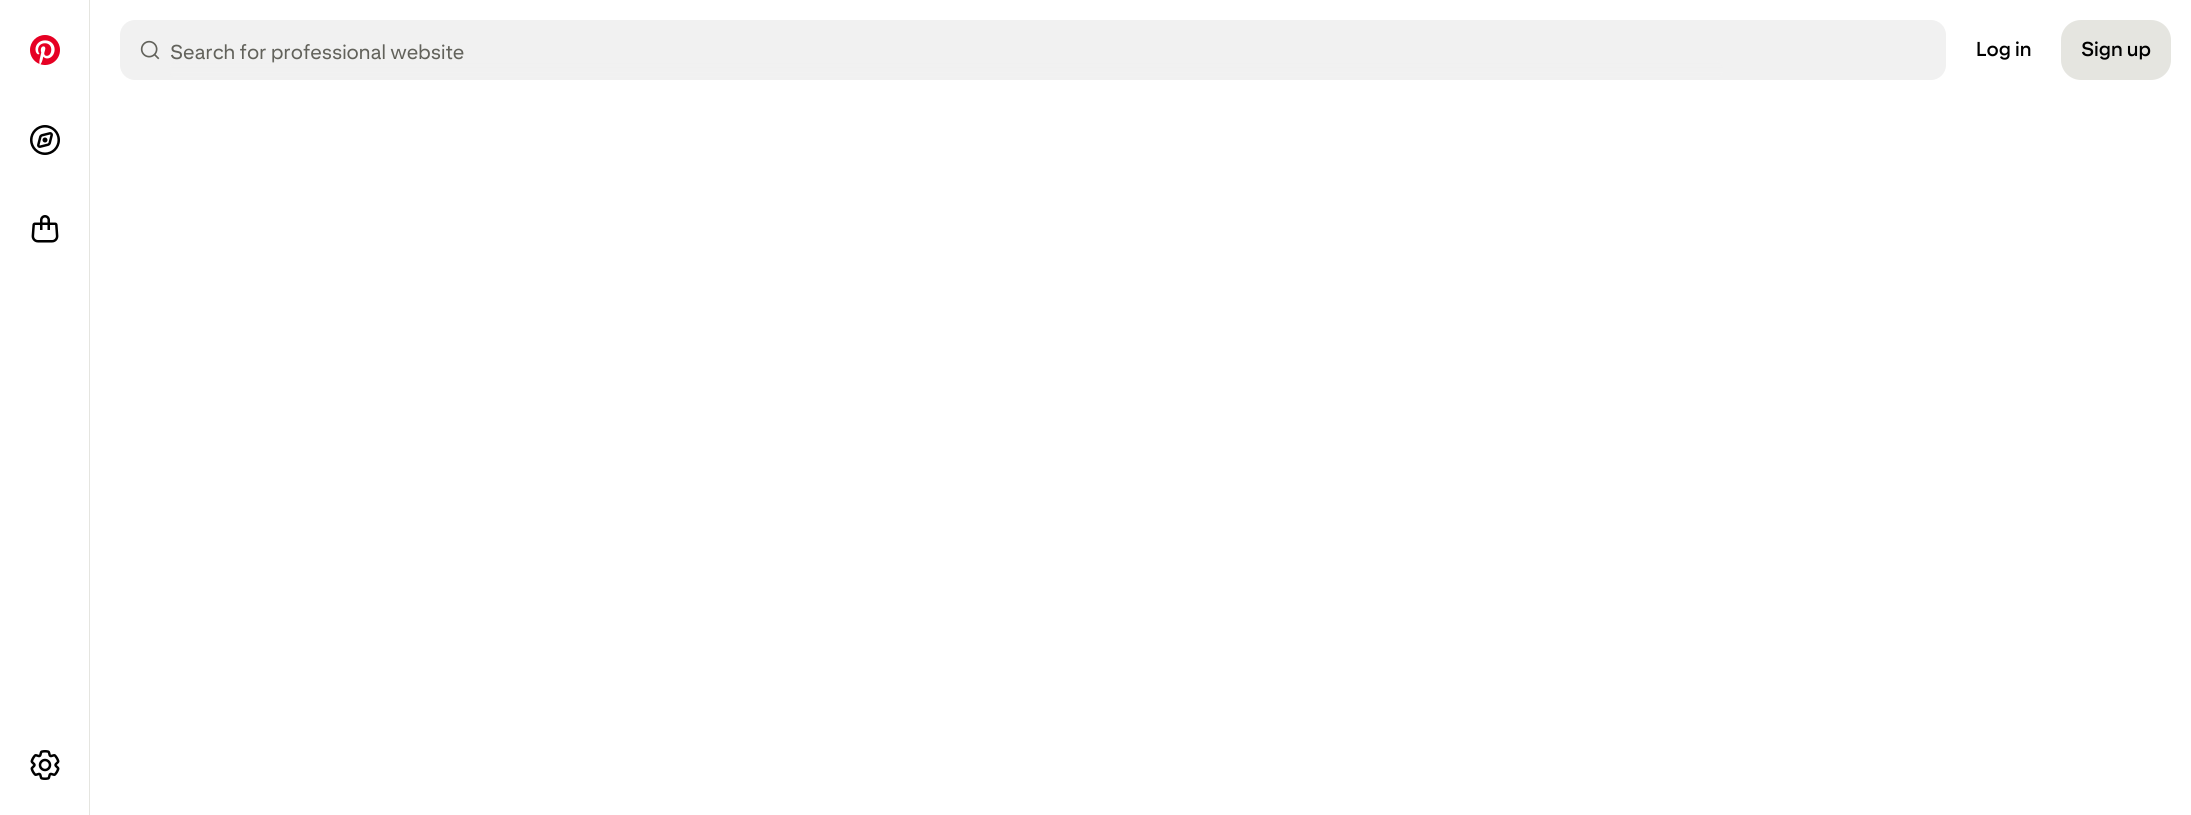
import math
import cairocffi as cairo

surface = cairo.ImageSurface(cairo.FORMAT_RGB24, 2191, 815)
cr = cairo.Context(surface)
options = cairo.FontOptions()
options.set_hint_metrics(cairo.HINT_METRICS_OFF)
options.set_hint_style(cairo.HINT_STYLE_NONE)
cr.set_font_options(options)
cr.set_miter_limit(4)


def use_color(code):
    cr.set_source_rgb(*(v / 255 for v in bytes.fromhex(code[-6:])))


def round_rect(x, y, w, h, r):
    cr.new_sub_path()
    for i, (u, v) in enumerate([(x + w - r, y + h - r), (x + r, y + h - r), (x + r, y + r), (x + w - r, y + r)]):
        cr.arc(u, v, r, i * math.pi / 2, (i + 1) * math.pi / 2)
    cr.close_path()


def picture(path, x, y, w, h):
    cr.save()
    cr.set_source_surface(cairo.ImageSurface.create_from_png(path), x, y)
    cr.rectangle(x, y, w, h)
    cr.fill()
    cr.restore()


use_color("#ffffff")
cr.paint()
use_color("#e5e5e0")
cr.rectangle(89, 0, 1, 815)
cr.fill()
picture("img1.png", 30, 35, 30, 30)
picture("img2.png", 30, 125, 30, 30)
picture("img3.png", 31, 215, 28, 28)
picture("img4.png", 30, 750, 30, 30)
use_color("#f1f1f1")
round_rect(120, 20, 1826, 60, 15)
cr.fill()
picture("img5.png", 140, 40, 20, 20)
cr.select_font_face("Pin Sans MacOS")
cr.set_font_size(20)
use_color("#62625b")
cr.move_to(170, 59)
cr.show_text("Search for")
cr.move_to(271, 59)
cr.show_text("professional website")
gradient = cairo.LinearGradient(946, 60, 946, 80)
gradient.add_color_stop_rgba(0, 0.945, 0.945, 0.945, 0)
gradient.add_color_stop_rgba(1, 0.945, 0.945, 0.945, 1)
cr.set_source(gradient)
round_rect(170, 60, 1553, 20, 10)
cr.fill()
cr.select_font_face("Pin Sans MacOS Medium")
use_color("#000000")
cr.move_to(1976, 56)
cr.show_text("Log in")
use_color("#e5e5e0")
round_rect(2061, 20, 110, 60, 20)
cr.fill()
use_color("#000000")
cr.move_to(2081, 56)
cr.show_text("Sign up")
surface.write_to_png("result.png")
